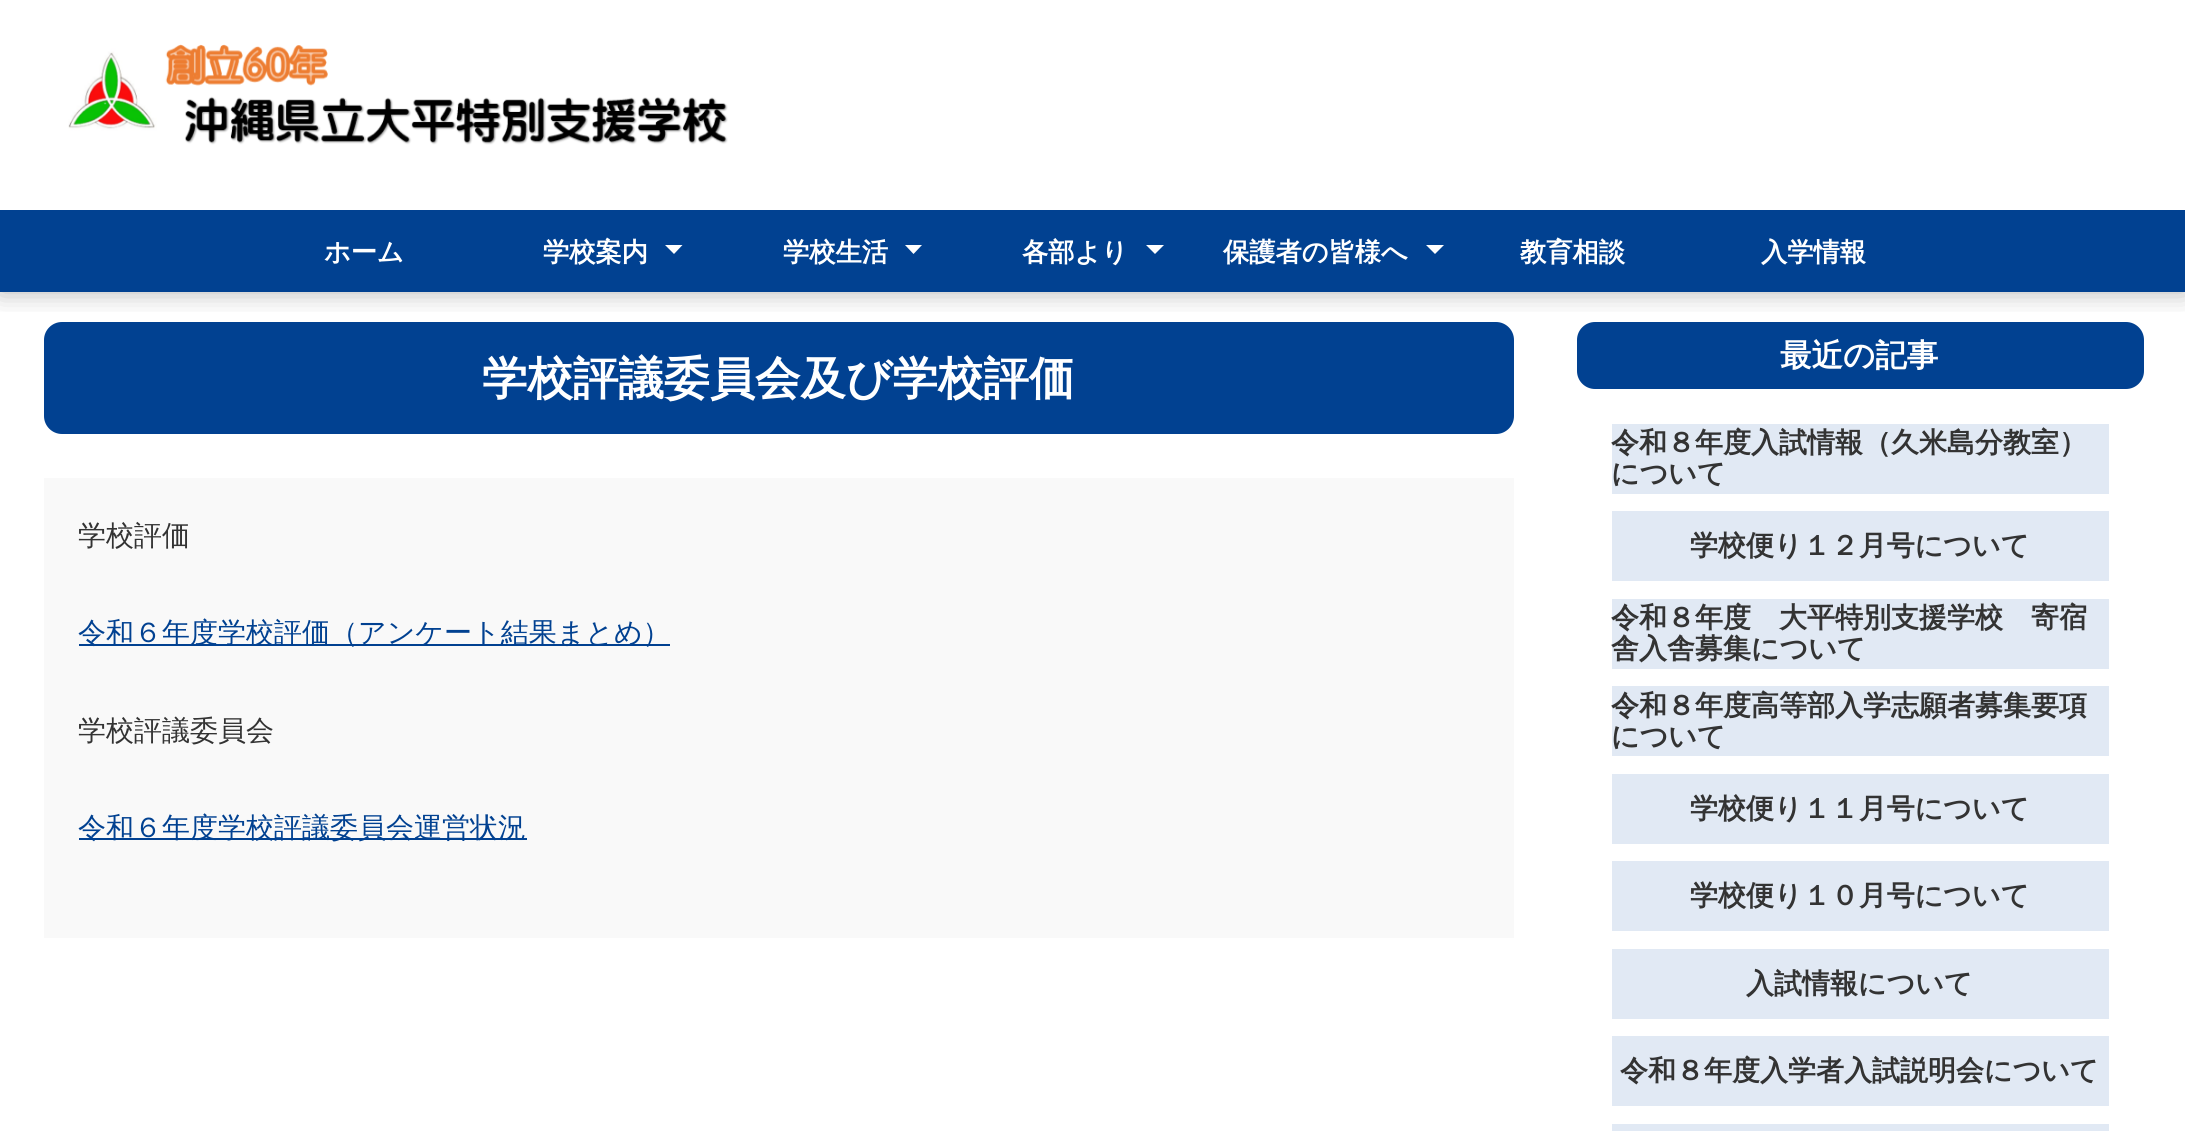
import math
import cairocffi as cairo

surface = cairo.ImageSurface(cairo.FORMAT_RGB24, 2185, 1131)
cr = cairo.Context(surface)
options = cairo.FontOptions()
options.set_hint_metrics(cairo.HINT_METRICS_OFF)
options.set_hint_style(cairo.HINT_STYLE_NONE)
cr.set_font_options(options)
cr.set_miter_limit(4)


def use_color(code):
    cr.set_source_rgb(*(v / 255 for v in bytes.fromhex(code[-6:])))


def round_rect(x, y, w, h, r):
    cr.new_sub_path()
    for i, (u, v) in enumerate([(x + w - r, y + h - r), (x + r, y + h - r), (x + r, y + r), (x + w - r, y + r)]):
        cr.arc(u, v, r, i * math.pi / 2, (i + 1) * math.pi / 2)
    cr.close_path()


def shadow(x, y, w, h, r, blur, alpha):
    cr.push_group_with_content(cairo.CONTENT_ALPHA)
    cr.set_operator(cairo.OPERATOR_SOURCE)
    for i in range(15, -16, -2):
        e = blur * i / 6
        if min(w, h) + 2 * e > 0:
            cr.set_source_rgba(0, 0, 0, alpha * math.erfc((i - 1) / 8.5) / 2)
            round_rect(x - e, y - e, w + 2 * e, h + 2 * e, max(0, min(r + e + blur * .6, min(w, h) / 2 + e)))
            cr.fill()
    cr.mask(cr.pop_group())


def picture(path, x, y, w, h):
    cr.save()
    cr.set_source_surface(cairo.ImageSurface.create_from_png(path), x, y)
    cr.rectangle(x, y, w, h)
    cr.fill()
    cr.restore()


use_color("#ffffff")
cr.paint()
use_color("#014191")
round_rect(44, 322, 1470, 112, 18)
cr.fill()
round_rect(1577, 322, 567, 67, 18)
cr.fill()
cr.save()
cr.rectangle(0, 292, 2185, 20)
cr.clip()
use_color("#000000")
shadow(0, 0, 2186, 292, 0, 13, 0.3)
cr.restore()
picture("img1.png", 68, 44, 660, 101)
cr.rectangle(0, 210, 2185, 82)
cr.fill()
cr.select_font_face("WenQuanYi Zen Hei", cairo.FONT_SLANT_NORMAL, cairo.FONT_WEIGHT_BOLD)
cr.set_font_size(26.25)
use_color("#ffffff")
cr.move_to(324, 261)
cr.show_text("ホーム")
cr.move_to(543, 261)
cr.show_text("学校案内")
cr.new_path()
cr.move_to(665, 245)
cr.line_to(682.5, 245)
cr.line_to(674, 254)
cr.close_path()
cr.fill()
cr.move_to(783, 261)
cr.show_text("学校生活")
cr.new_path()
cr.move_to(905, 245)
cr.line_to(922, 245)
cr.line_to(913.5, 254)
cr.close_path()
cr.fill()
cr.move_to(1022, 261)
cr.show_text("各部より")
cr.new_path()
cr.move_to(1146, 245)
cr.line_to(1164, 245)
cr.line_to(1155, 254)
cr.close_path()
cr.fill()
cr.move_to(1223, 261)
cr.show_text("保護者の皆様へ")
cr.new_path()
cr.move_to(1426, 245)
cr.line_to(1444, 245)
cr.line_to(1435, 254)
cr.close_path()
cr.fill()
cr.move_to(1520, 261)
cr.show_text("教育相談")
cr.move_to(1761, 261)
cr.show_text("入学情報")
cr.set_font_size(45.5)
cr.move_to(482, 394)
cr.show_text("学校評議委員会及び学校評価")
use_color("#f9f9f9")
cr.rectangle(44, 478, 1470, 460)
cr.fill()
cr.select_font_face("WenQuanYi Zen Hei Medium")
cr.set_font_size(28)
use_color("#333333")
cr.move_to(78, 545)
cr.show_text("学校評価")
use_color("#014191")
cr.rectangle(79, 644, 591, 2)
cr.fill()
cr.move_to(78, 642)
cr.show_text("令和６年度学校評価（アンケート結果まとめ）")
use_color("#333333")
cr.move_to(78, 740)
cr.show_text("学校評議委員会")
use_color("#014191")
cr.rectangle(79, 838, 448, 2)
cr.fill()
cr.move_to(78, 837)
cr.show_text("令和６年度学校評議委員会運営状況")
cr.select_font_face("WenQuanYi Zen Hei", cairo.FONT_SLANT_NORMAL, cairo.FONT_WEIGHT_BOLD)
cr.set_font_size(31.5)
use_color("#ffffff")
cr.move_to(1780, 366)
cr.show_text("最近の記事")
use_color("#e1e9f4")
cr.rectangle(1612, 424, 497, 70)
cr.fill()
cr.set_font_size(28)
use_color("#333333")
cr.move_to(1611, 452)
cr.show_text("令和８年度入試情報（久米島分教室）")
cr.move_to(1611, 483)
cr.show_text("について")
use_color("#e1e9f4")
cr.rectangle(1612, 511, 497, 70)
cr.fill()
use_color("#333333")
cr.move_to(1690, 555)
cr.show_text("学校便り１２月号について")
use_color("#e1e9f4")
cr.rectangle(1612, 599, 497, 70)
cr.fill()
use_color("#333333")
cr.move_to(1611, 627)
cr.show_text("令和８年度　大平特別支援学校　寄宿")
cr.move_to(1611, 658)
cr.show_text("舎入舎募集について")
use_color("#e1e9f4")
cr.rectangle(1612, 686, 497, 70)
cr.fill()
use_color("#333333")
cr.move_to(1611, 715)
cr.show_text("令和８年度高等部入学志願者募集要項")
cr.move_to(1611, 746)
cr.show_text("について")
use_color("#e1e9f4")
cr.rectangle(1612, 774, 497, 70)
cr.fill()
use_color("#333333")
cr.move_to(1690, 818)
cr.show_text("学校便り１１月号について")
use_color("#e1e9f4")
cr.rectangle(1612, 861, 497, 70)
cr.fill()
use_color("#333333")
cr.move_to(1690, 905)
cr.show_text("学校便り１０月号について")
use_color("#e1e9f4")
cr.rectangle(1612, 949, 497, 70)
cr.fill()
use_color("#333333")
cr.move_to(1746, 993)
cr.show_text("入試情報について")
use_color("#e1e9f4")
cr.rectangle(1612, 1036, 497, 70)
cr.fill()
use_color("#333333")
cr.move_to(1620, 1080)
cr.show_text("令和８年度入学者入試説明会について")
use_color("#e1e9f4")
cr.rectangle(1612, 1124, 497, 7)
cr.fill()
surface.write_to_png("result.png")
